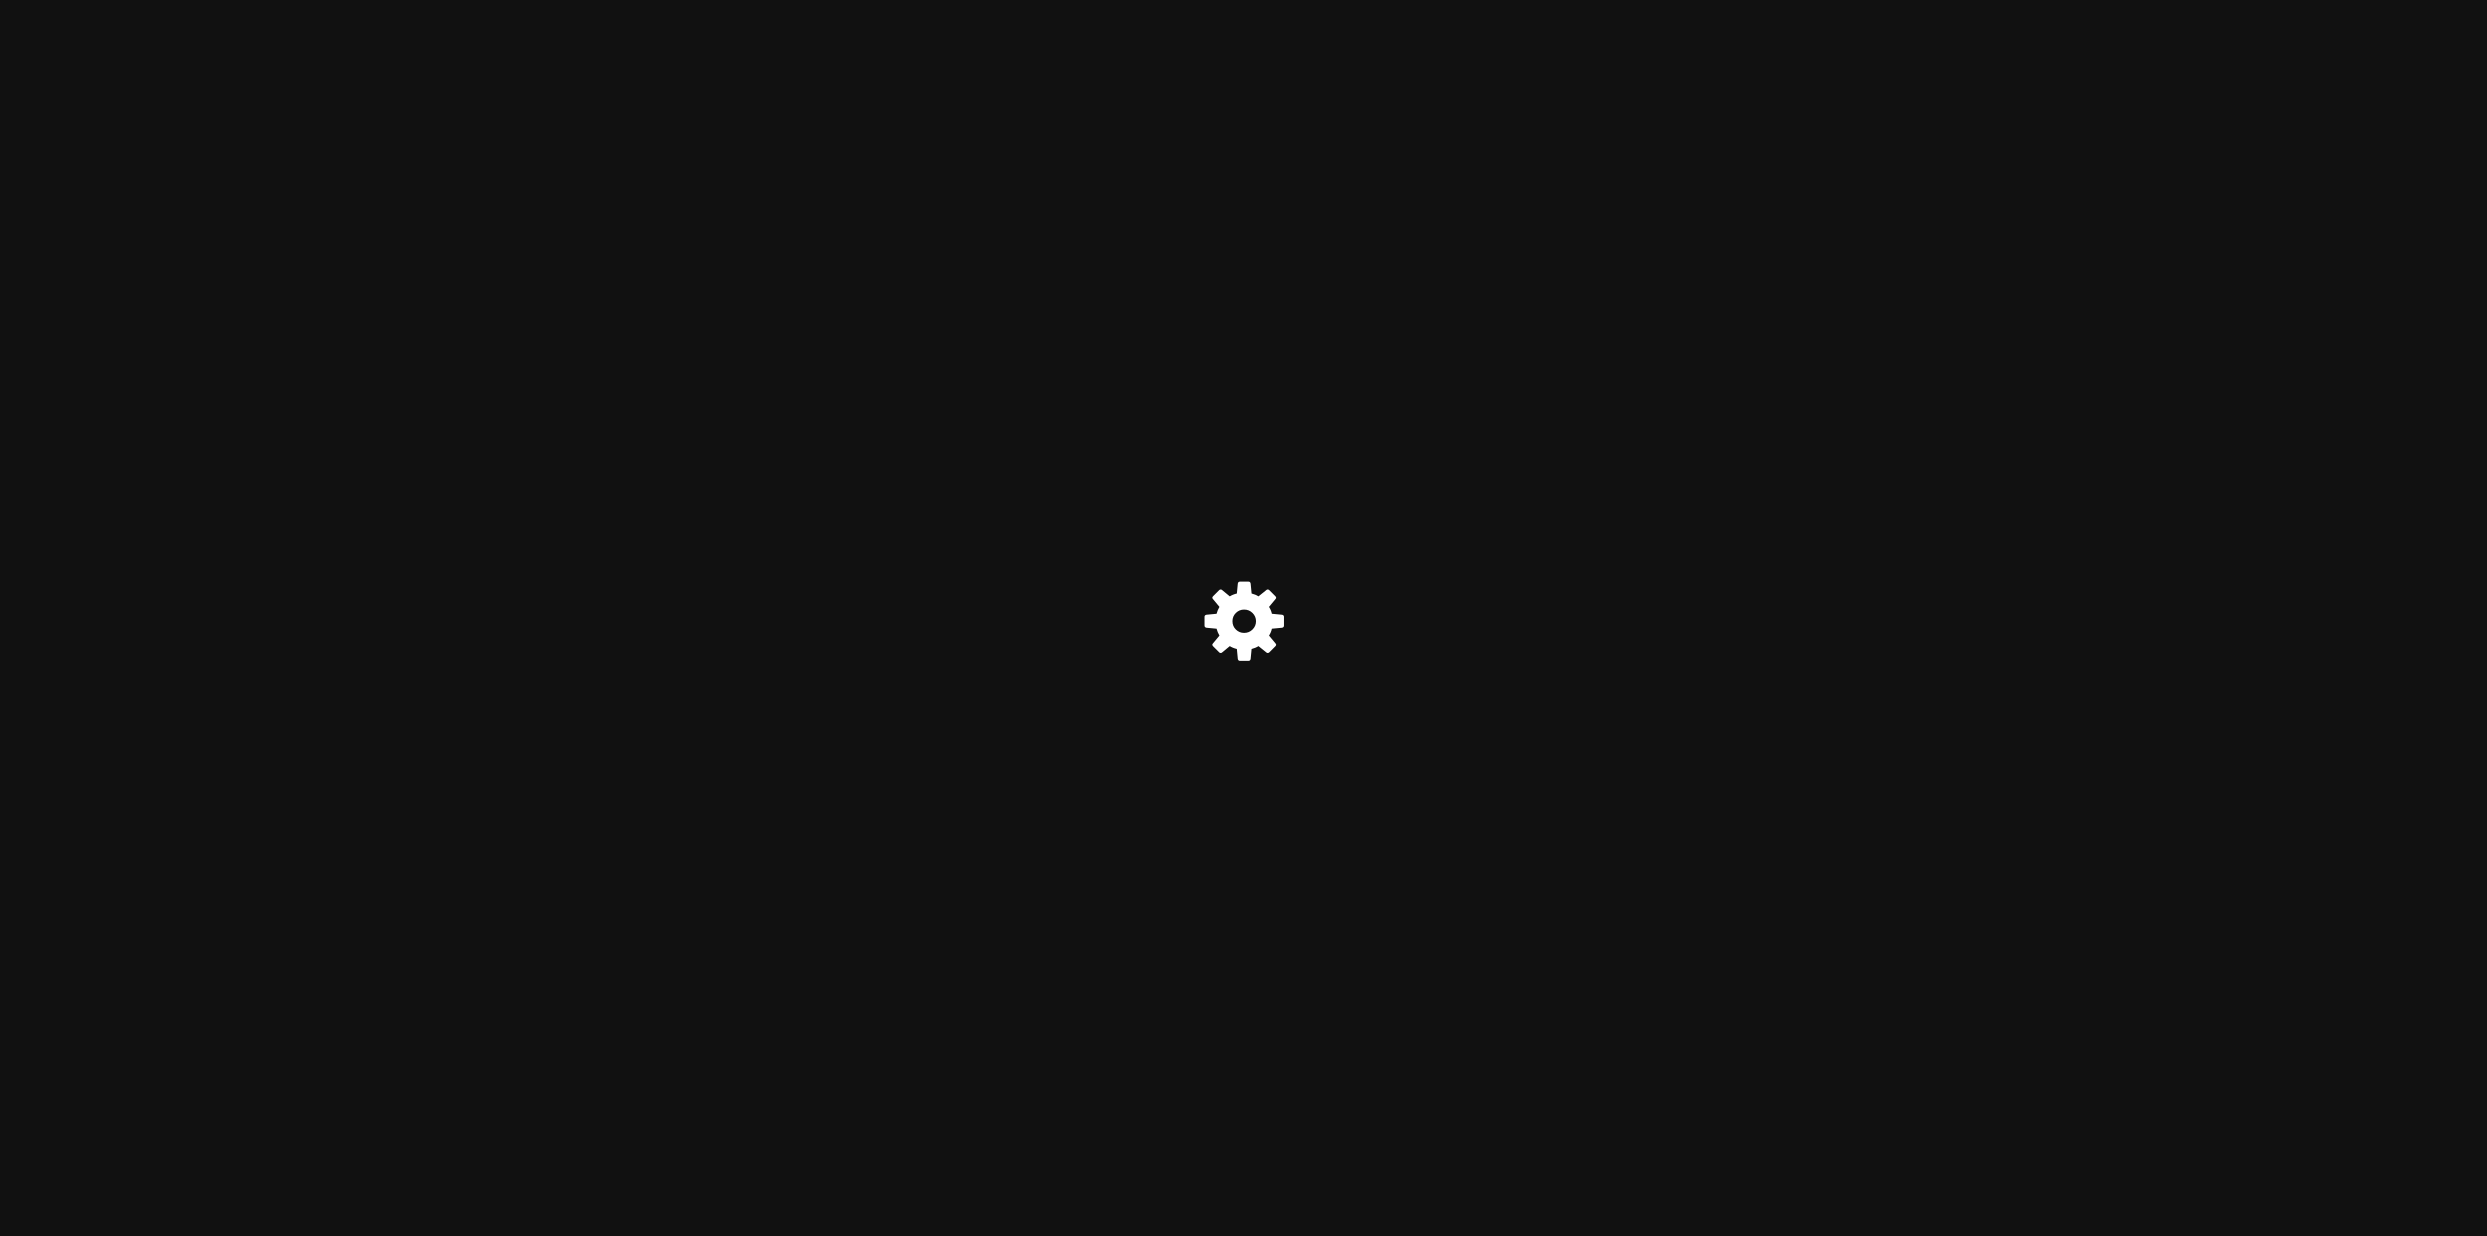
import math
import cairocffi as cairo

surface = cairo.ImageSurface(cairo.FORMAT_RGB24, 2487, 1236)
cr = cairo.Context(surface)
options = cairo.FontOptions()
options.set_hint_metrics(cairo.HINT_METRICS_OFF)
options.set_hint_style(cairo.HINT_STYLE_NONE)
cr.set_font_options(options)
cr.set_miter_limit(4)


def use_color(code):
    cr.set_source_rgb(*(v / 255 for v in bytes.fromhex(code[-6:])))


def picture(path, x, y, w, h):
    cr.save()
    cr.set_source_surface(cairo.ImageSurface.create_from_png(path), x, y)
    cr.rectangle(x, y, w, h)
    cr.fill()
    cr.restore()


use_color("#111111")
cr.paint()
picture("img1.png", 1204, 581, 80, 80)
surface.write_to_png("result.png")
